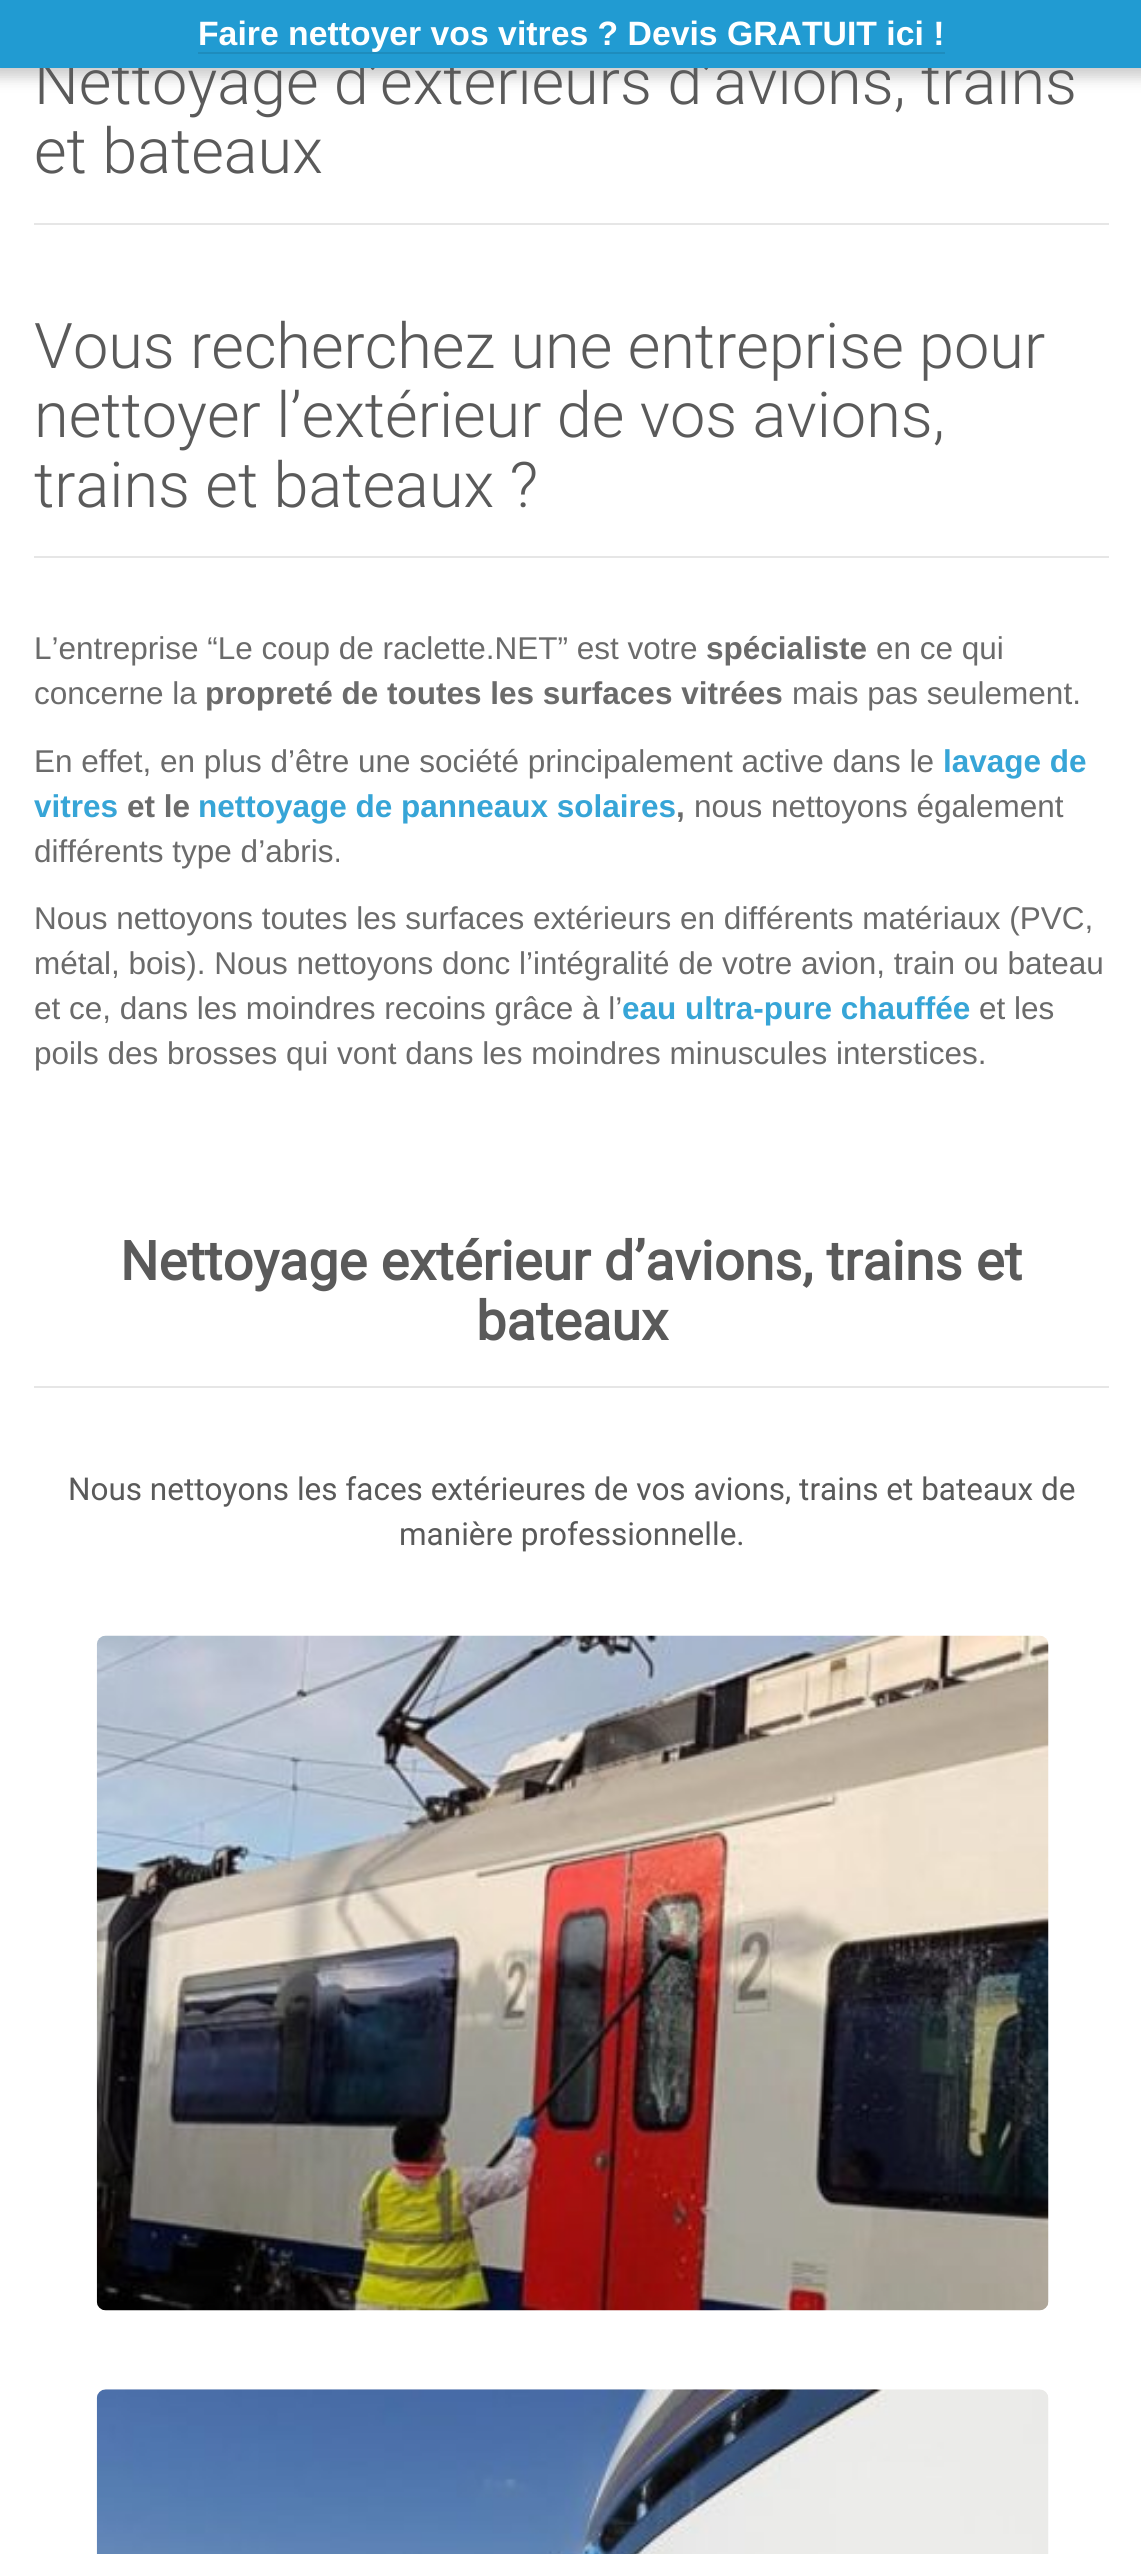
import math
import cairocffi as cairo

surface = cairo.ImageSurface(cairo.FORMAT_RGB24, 1141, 2554)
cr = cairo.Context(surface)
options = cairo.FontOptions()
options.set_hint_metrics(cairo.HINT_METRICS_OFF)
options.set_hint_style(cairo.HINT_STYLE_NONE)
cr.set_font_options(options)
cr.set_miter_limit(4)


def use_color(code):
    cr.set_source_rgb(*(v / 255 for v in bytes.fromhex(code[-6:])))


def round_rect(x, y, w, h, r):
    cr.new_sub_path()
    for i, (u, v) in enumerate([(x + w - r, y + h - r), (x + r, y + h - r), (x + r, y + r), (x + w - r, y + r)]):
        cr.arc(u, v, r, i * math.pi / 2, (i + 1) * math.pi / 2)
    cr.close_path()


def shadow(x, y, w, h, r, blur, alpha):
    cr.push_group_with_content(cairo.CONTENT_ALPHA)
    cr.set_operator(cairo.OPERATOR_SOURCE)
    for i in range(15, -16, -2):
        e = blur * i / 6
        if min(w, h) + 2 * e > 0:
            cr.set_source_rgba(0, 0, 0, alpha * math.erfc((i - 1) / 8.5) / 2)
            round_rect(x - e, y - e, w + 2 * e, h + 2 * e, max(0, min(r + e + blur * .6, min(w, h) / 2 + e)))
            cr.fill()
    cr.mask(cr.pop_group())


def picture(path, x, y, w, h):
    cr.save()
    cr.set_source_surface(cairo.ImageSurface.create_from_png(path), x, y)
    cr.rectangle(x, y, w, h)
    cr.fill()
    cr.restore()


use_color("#ffffff")
cr.paint()
use_color("#cccccc")
shadow(-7, -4, 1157, 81, 0, 7, 1)
cr.select_font_face("Roboto Light")
cr.set_font_size(63)
use_color("#5a5a5a")
cr.move_to(34, 104)
cr.show_text("Nettoyage d’extérieurs d’avions, trains")
use_color("#219bd2")
cr.rectangle(0, 0, 1141, 68)
cr.fill()
cr.select_font_face("Liberation Sans", cairo.FONT_SLANT_NORMAL, cairo.FONT_WEIGHT_BOLD)
cr.set_font_size(33.75)
use_color("#ffffff")
cr.move_to(198, 45)
cr.show_text("Faire nettoyer vos vitres ? Devis GRATUIT ici !")
use_color("#1e8cbd")
cr.rectangle(198, 52, 747, 2)
cr.fill()
use_color("#e6e6e6")
cr.rectangle(34, 223, 1075, 2)
cr.fill()
cr.select_font_face("Roboto Light")
cr.set_font_size(63)
use_color("#5a5a5a")
cr.move_to(34, 173)
cr.show_text("et bateaux")
use_color("#e6e6e6")
cr.rectangle(34, 556, 1075, 2)
cr.fill()
use_color("#5a5a5a")
cr.move_to(34, 368)
cr.show_text("Vous recherchez une entreprise pour")
cr.move_to(34, 437)
cr.show_text("nettoyer l’extérieur de vos avions,")
cr.move_to(34, 507)
cr.show_text("trains et bateaux ?")
cr.select_font_face("Liberation Sans")
cr.set_font_size(31.5)
use_color("#6b6b6b")
cr.move_to(34, 659)
cr.show_text("L’entreprise “Le coup de raclette.NET” est votre")
cr.select_font_face("Liberation Sans", cairo.FONT_SLANT_NORMAL, cairo.FONT_WEIGHT_BOLD)
cr.move_to(706, 659)
cr.show_text("spécialiste")
cr.select_font_face("Liberation Sans")
cr.move_to(876, 659)
cr.show_text("en ce qui")
cr.move_to(34, 704)
cr.show_text("concerne la")
cr.select_font_face("Liberation Sans", cairo.FONT_SLANT_NORMAL, cairo.FONT_WEIGHT_BOLD)
cr.move_to(205, 704)
cr.show_text("propreté de toutes les surfaces vitrées")
cr.select_font_face("Liberation Sans")
cr.move_to(792, 704)
cr.show_text("mais pas seulement.")
cr.move_to(34, 772)
cr.show_text("En effet, en plus d’être une société principalement active dans le")
cr.select_font_face("Liberation Sans", cairo.FONT_SLANT_NORMAL, cairo.FONT_WEIGHT_BOLD)
use_color("#37a5d7")
cr.move_to(943, 772)
cr.show_text("lavage de")
cr.move_to(34, 817)
cr.show_text("vitres")
use_color("#6b6b6b")
cr.move_to(127, 817)
cr.show_text("et le")
use_color("#37a5d7")
cr.move_to(198, 817)
cr.show_text("nettoyage de panneaux solaires")
use_color("#6b6b6b")
cr.move_to(676, 817)
cr.show_text(",")
cr.select_font_face("Liberation Sans")
cr.move_to(694, 817)
cr.show_text("nous nettoyons également")
cr.move_to(34, 862)
cr.show_text("différents type d’abris.")
cr.move_to(34, 929)
cr.show_text("Nous nettoyons toutes les surfaces extérieurs en différents matériaux (PVC,")
cr.move_to(34, 974)
cr.show_text("métal, bois). Nous nettoyons donc l’intégralité de votre avion, train ou bateau")
cr.move_to(34, 1019)
cr.show_text("et ce, dans les moindres recoins grâce à l’")
cr.select_font_face("Liberation Sans", cairo.FONT_SLANT_NORMAL, cairo.FONT_WEIGHT_BOLD)
use_color("#37a5d7")
cr.move_to(622, 1019)
cr.show_text("eau ultra-pure chauffée")
cr.select_font_face("Liberation Sans")
use_color("#6b6b6b")
cr.move_to(979, 1019)
cr.show_text("et les")
cr.move_to(34, 1064)
cr.show_text("poils des brosses qui vont dans les moindres minuscules interstices.")
use_color("#e6e6e6")
cr.rectangle(34, 1386, 1075, 2)
cr.fill()
cr.select_font_face("Roboto", cairo.FONT_SLANT_NORMAL, cairo.FONT_WEIGHT_BOLD)
cr.set_font_size(54)
use_color("#5a5a5a")
cr.move_to(120, 1280)
cr.show_text("Nettoyage extérieur d’avions, trains et")
cr.move_to(476, 1340)
cr.show_text("bateaux")
cr.select_font_face("Roboto")
cr.set_font_size(31.5)
cr.move_to(68, 1500)
cr.show_text("Nous nettoyons les faces extérieures de vos avions, trains et bateaux de")
cr.move_to(399, 1545)
cr.show_text("manière professionnelle.")
picture("img1.png", 96, 1635, 953, 676)
picture("img2.png", 96, 2389, 953, 165)
surface.write_to_png("result.png")
